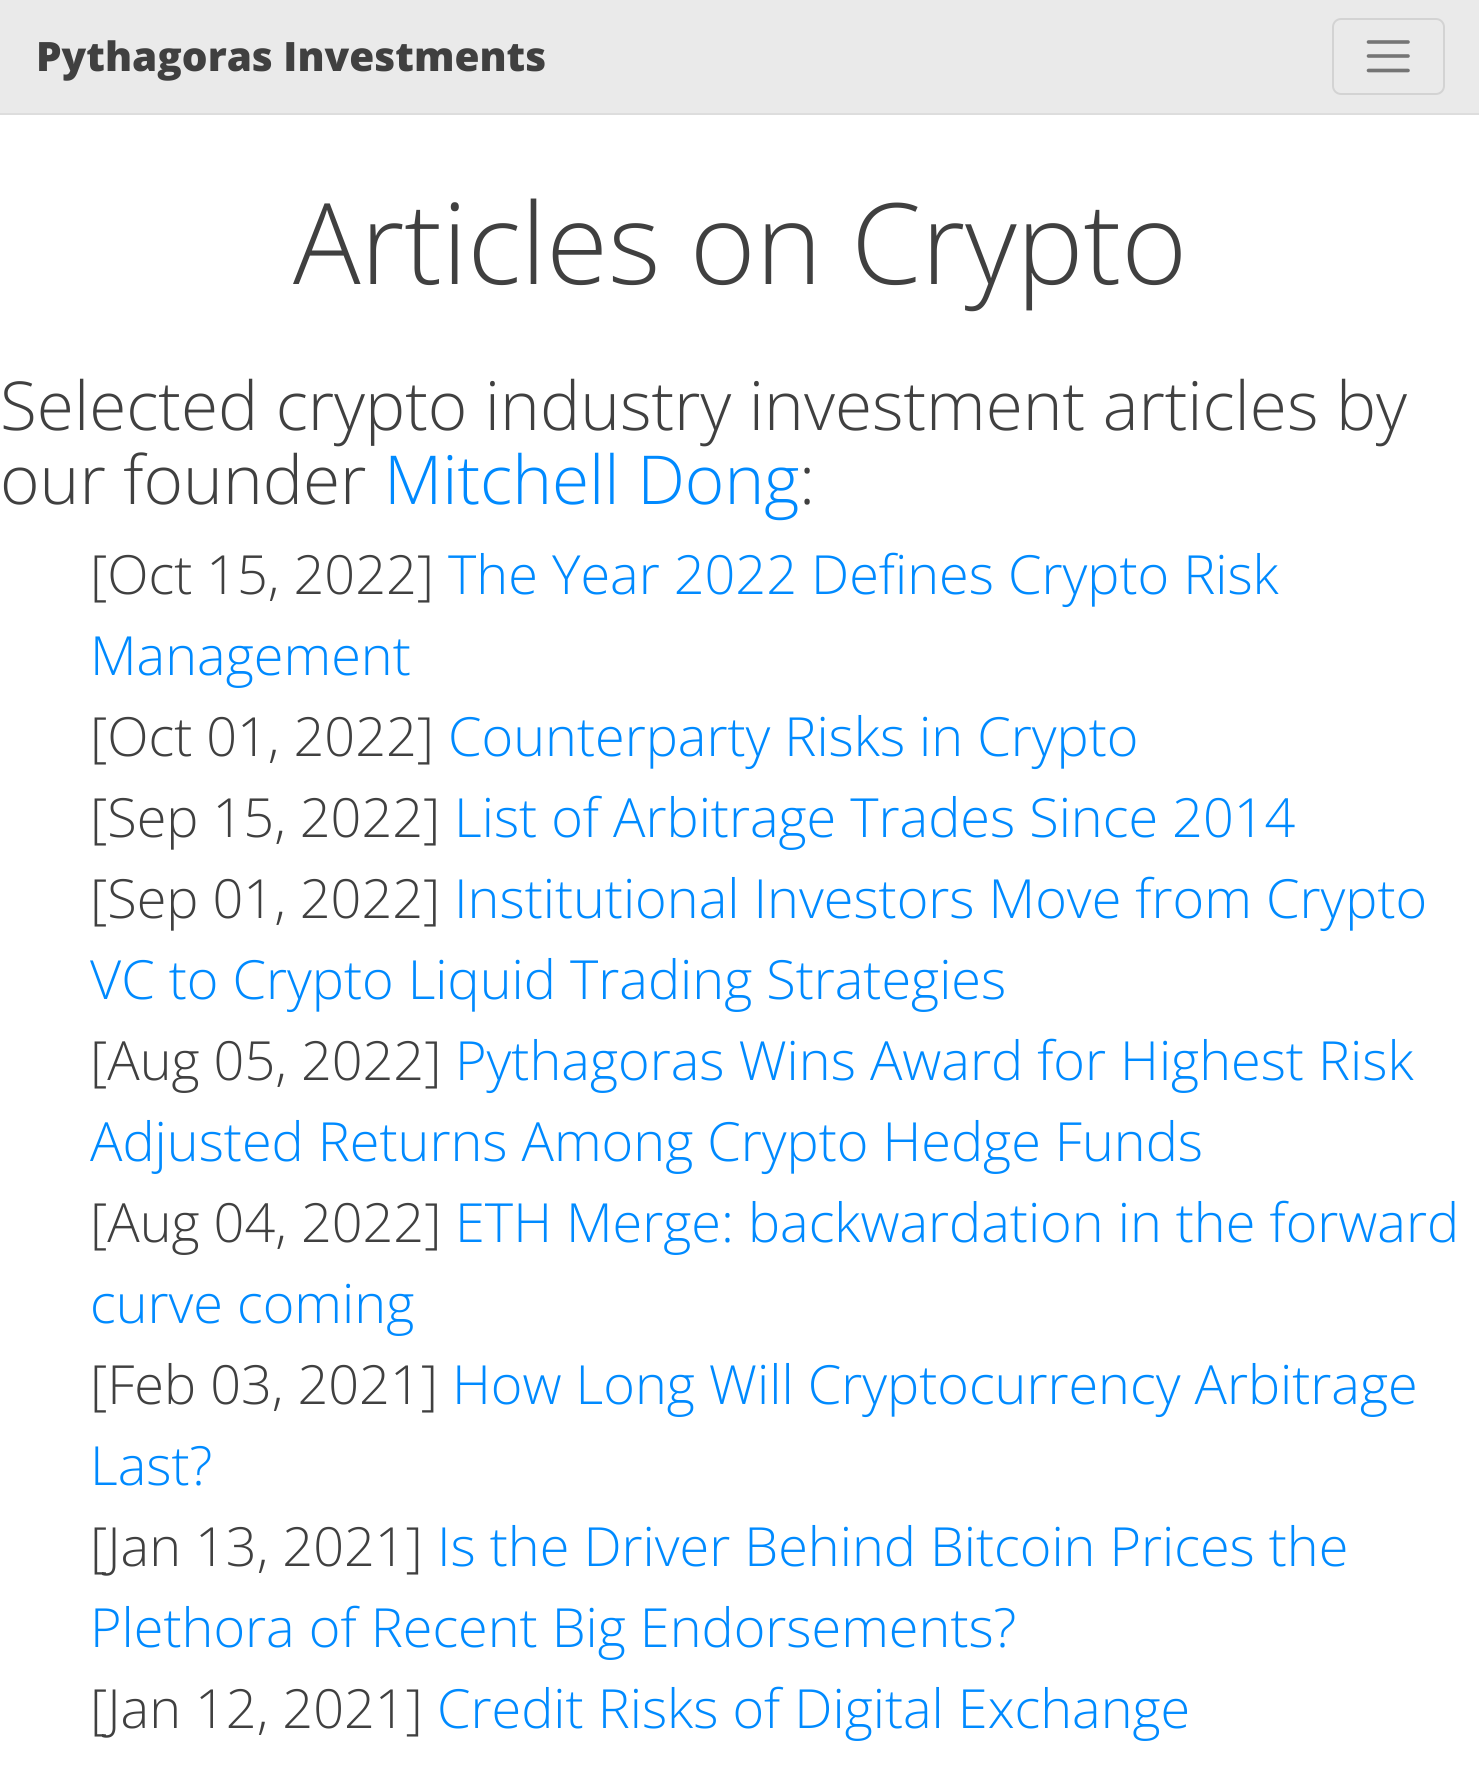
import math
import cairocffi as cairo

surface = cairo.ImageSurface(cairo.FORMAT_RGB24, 1479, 1783)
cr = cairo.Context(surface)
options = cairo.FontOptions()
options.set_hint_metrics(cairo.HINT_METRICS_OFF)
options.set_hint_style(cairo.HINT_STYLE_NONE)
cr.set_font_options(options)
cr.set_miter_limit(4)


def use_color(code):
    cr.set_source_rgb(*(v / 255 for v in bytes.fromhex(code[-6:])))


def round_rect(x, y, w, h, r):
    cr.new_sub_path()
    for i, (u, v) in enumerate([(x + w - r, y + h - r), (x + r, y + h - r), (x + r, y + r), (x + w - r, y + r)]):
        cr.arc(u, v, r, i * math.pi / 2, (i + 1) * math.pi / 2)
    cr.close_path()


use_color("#ffffff")
cr.paint()
use_color("#eaeaea")
cr.rectangle(0, 0, 1479, 113)
cr.fill()
use_color("#dddddd")
cr.rectangle(0, 113, 1479, 2)
cr.fill()
cr.select_font_face("Open Sans ExtraBold")
cr.set_font_size(40.5)
use_color("#404040")
cr.move_to(36, 71)
cr.show_text("Pythagoras Investments")
round_rect(1333, 19, 111, 75, 8)
use_color("#d3d3d3")
cr.stroke()
cr.new_path()
cr.move_to(1368.5, 42)
cr.line_to(1408, 42)
cr.move_to(1368.5, 56)
cr.line_to(1408, 56)
cr.move_to(1368.5, 70.5)
cr.line_to(1408, 70.5)
use_color("#757575")
cr.set_line_width(3.6)
cr.set_line_cap(cairo.LINE_CAP_ROUND)
cr.stroke()
cr.select_font_face("Open Sans Light")
cr.set_font_size(112.5)
use_color("#404040")
cr.move_to(293, 284)
cr.show_text("Articles on Crypto")
cr.set_font_size(67.5)
cr.move_to(0, 430)
cr.show_text("Selected crypto industry investment articles by")
cr.move_to(0, 504)
cr.show_text("our founder")
use_color("#008aff")
cr.move_to(384, 504)
cr.show_text("Mitchell Dong")
use_color("#404040")
cr.move_to(799, 504)
cr.show_text(":")
cr.set_font_size(54)
cr.move_to(90, 594)
cr.show_text("[Oct 15, 2022]")
use_color("#008aff")
cr.move_to(448, 594)
cr.show_text("The Year 2022 Defines Crypto Risk")
cr.move_to(90, 675)
cr.show_text("Management")
use_color("#404040")
cr.move_to(90, 756)
cr.show_text("[Oct 01, 2022]")
use_color("#008aff")
cr.move_to(448, 756)
cr.show_text("Counterparty Risks in Crypto")
use_color("#404040")
cr.move_to(90, 837)
cr.show_text("[Sep 15, 2022]")
use_color("#008aff")
cr.move_to(454, 837)
cr.show_text("List of Arbitrage Trades Since 2014")
use_color("#404040")
cr.move_to(90, 918)
cr.show_text("[Sep 01, 2022]")
use_color("#008aff")
cr.move_to(454, 918)
cr.show_text("Institutional Investors Move from Crypto")
cr.move_to(90, 999)
cr.show_text("VC to Crypto Liquid Trading Strategies")
use_color("#404040")
cr.move_to(90, 1080)
cr.show_text("[Aug 05, 2022]")
use_color("#008aff")
cr.move_to(455, 1080)
cr.show_text("Pythagoras Wins Award for Highest Risk")
cr.move_to(90, 1161)
cr.show_text("Adjusted Returns Among Crypto Hedge Funds")
use_color("#404040")
cr.move_to(90, 1242)
cr.show_text("[Aug 04, 2022]")
use_color("#008aff")
cr.move_to(455, 1242)
cr.show_text("ETH Merge: backwardation in the forward")
cr.move_to(90, 1323)
cr.show_text("curve coming")
use_color("#404040")
cr.move_to(90, 1404)
cr.show_text("[Feb 03, 2021]")
use_color("#008aff")
cr.move_to(452, 1404)
cr.show_text("How Long Will Cryptocurrency Arbitrage")
cr.move_to(90, 1485)
cr.show_text("Last?")
use_color("#404040")
cr.move_to(90, 1566)
cr.show_text("[Jan 13, 2021]")
use_color("#008aff")
cr.move_to(437, 1566)
cr.show_text("Is the Driver Behind Bitcoin Prices the")
cr.move_to(90, 1647)
cr.show_text("Plethora of Recent Big Endorsements?")
use_color("#404040")
cr.move_to(90, 1728)
cr.show_text("[Jan 12, 2021]")
use_color("#008aff")
cr.move_to(437, 1728)
cr.show_text("Credit Risks of Digital Exchange")
surface.write_to_png("result.png")
